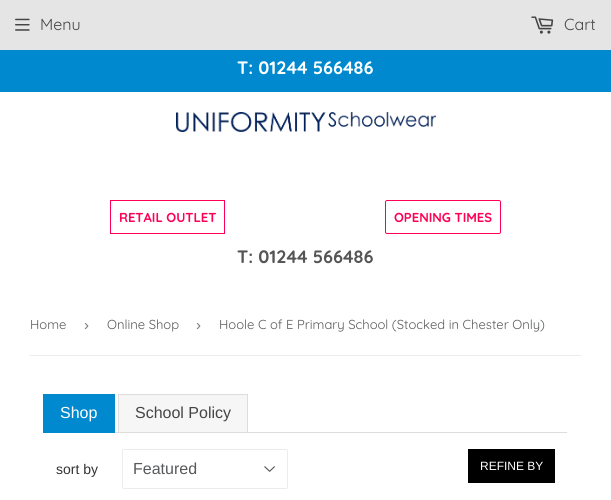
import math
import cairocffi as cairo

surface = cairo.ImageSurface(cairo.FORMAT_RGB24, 611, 500)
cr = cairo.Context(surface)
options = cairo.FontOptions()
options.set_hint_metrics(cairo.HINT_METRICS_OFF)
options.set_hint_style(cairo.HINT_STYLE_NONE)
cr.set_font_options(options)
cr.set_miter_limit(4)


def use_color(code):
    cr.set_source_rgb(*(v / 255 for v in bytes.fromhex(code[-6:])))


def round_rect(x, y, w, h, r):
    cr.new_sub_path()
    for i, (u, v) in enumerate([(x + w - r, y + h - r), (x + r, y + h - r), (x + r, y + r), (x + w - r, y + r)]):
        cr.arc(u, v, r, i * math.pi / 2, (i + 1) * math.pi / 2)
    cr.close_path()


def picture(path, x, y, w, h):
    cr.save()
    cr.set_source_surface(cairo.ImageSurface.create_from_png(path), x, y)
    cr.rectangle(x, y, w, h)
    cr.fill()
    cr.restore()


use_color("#ffffff")
cr.paint()
use_color("#e5e5e5")
cr.rectangle(0, 0, 611, 50)
cr.fill()
picture("img1.png", 15, 18, 15, 13)
cr.select_font_face("Quicksand")
cr.set_font_size(16)
use_color("#454545")
cr.move_to(40, 30)
cr.show_text("Menu")
picture("img2.png", 531, 16, 23, 18)
cr.move_to(564, 30)
cr.show_text("Cart")
use_color("#0089cf")
cr.rectangle(0, 50, 611, 42)
cr.fill()
cr.select_font_face("Quicksand", cairo.FONT_SLANT_NORMAL, cairo.FONT_WEIGHT_BOLD)
cr.set_font_size(18)
use_color("#ffffff")
cr.move_to(237, 74)
cr.show_text("T: 01244 566486")
picture("img3.png", 176, 112, 260, 20)
cr.rectangle(110.5, 200.5, 114, 33)
use_color("#ff0054")
cr.set_line_width(1)
cr.stroke()
cr.set_font_size(13)
cr.move_to(119, 222)
cr.show_text("RETAIL OUTLET")
round_rect(385.5, 200.5, 115, 33, 1.5)
cr.stroke()
cr.move_to(394, 222)
cr.show_text("OPENING TIMES")
cr.set_font_size(18)
use_color("#555555")
cr.move_to(237, 263)
cr.show_text("T: 01244 566486")
use_color("#ececec")
cr.rectangle(30, 355, 551, 1)
cr.fill()
cr.select_font_face("Quicksand")
cr.set_font_size(13)
use_color("#58595b")
cr.move_to(30, 329)
cr.show_text("Home")
cr.select_font_face("Liberation Sans")
cr.set_font_size(15)
use_color("#767676")
cr.move_to(84, 330)
cr.show_text("›")
cr.select_font_face("Quicksand")
cr.set_font_size(13)
use_color("#58595b")
cr.move_to(107, 329)
cr.show_text("Online Shop")
cr.select_font_face("Liberation Sans")
cr.set_font_size(15)
use_color("#767676")
cr.move_to(196, 330)
cr.show_text("›")
cr.select_font_face("Quicksand")
cr.set_font_size(13)
use_color("#58595b")
cr.move_to(219, 329)
cr.show_text("Hoole C of E Primary School (Stocked in Chester Only)")
use_color("#dddddd")
cr.rectangle(115, 432, 452, 1)
cr.fill()
use_color("#0089cf")
cr.rectangle(43, 394, 72, 39)
cr.fill()
cr.select_font_face("Liberation Sans")
cr.set_font_size(16)
use_color("#ffffff")
cr.move_to(60, 418)
cr.show_text("Shop")
use_color("#f6f6f6")
cr.rectangle(119, 395, 128, 37)
cr.fill()
use_color("#dddddd")
cr.rectangle(118, 394, 130, 1)
cr.fill()
cr.rectangle(247, 394, 1, 38)
cr.fill()
cr.rectangle(118, 394, 1, 38)
cr.fill()
use_color("#454545")
cr.move_to(135, 418)
cr.show_text("School Policy")
cr.set_font_size(14)
use_color("#333333")
cr.move_to(56, 474)
cr.show_text("sort by")
picture("img4.png", 264, 466, 11, 6)
round_rect(122.5, 449.5, 165, 39, 1.5)
use_color("#ececec")
cr.stroke()
cr.set_font_size(16)
use_color("#58595b")
cr.move_to(133, 474)
cr.show_text("Featured")
use_color("#000000")
cr.rectangle(468, 449, 87, 34)
cr.fill()
cr.set_font_size(12)
use_color("#ffffff")
cr.move_to(480, 470)
cr.show_text("REFINE BY")
surface.write_to_png("result.png")
